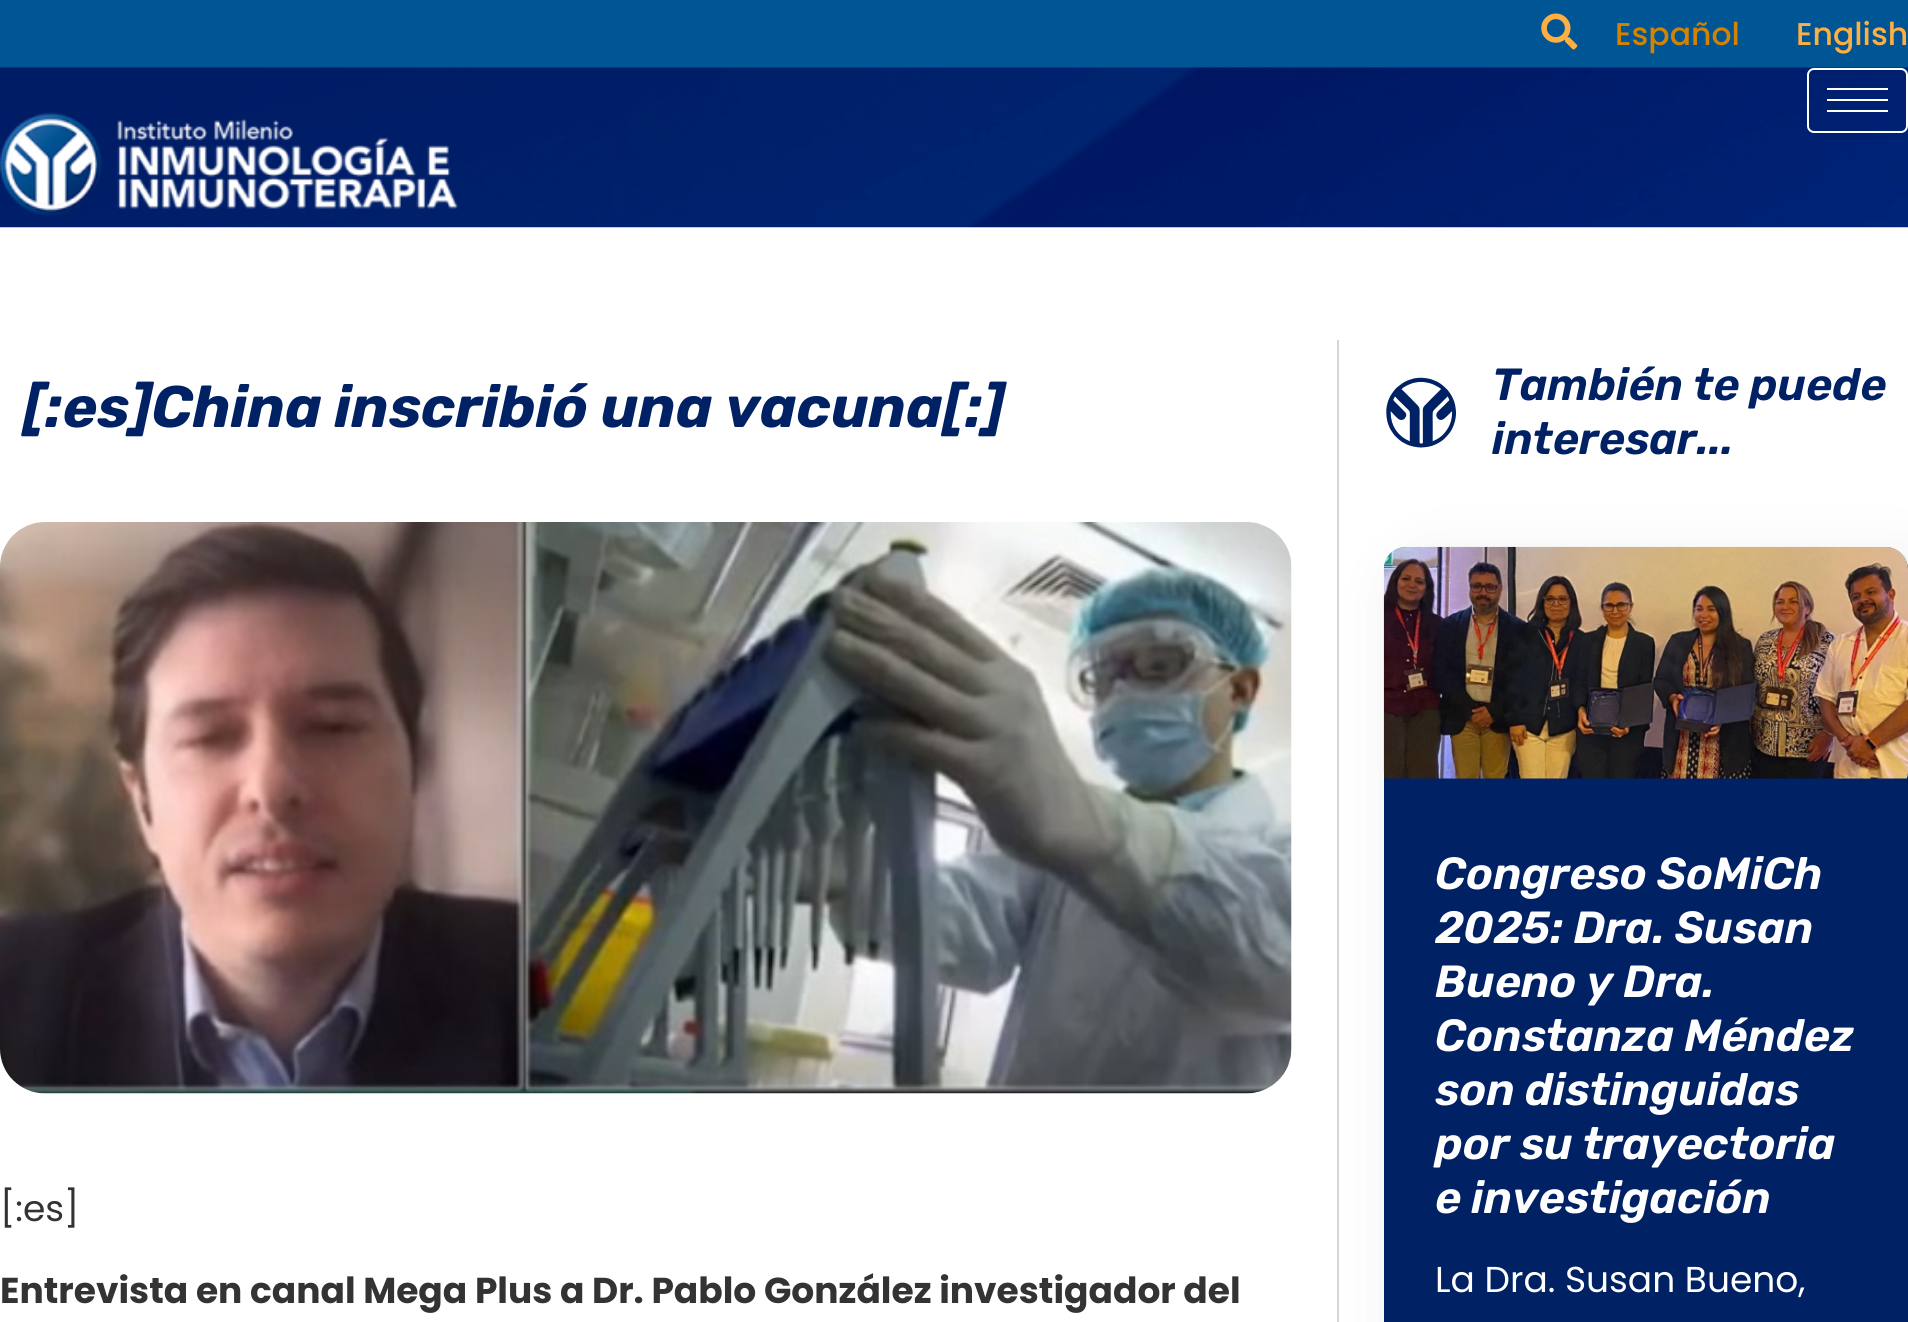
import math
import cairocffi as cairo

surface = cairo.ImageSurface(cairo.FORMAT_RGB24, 1908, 1322)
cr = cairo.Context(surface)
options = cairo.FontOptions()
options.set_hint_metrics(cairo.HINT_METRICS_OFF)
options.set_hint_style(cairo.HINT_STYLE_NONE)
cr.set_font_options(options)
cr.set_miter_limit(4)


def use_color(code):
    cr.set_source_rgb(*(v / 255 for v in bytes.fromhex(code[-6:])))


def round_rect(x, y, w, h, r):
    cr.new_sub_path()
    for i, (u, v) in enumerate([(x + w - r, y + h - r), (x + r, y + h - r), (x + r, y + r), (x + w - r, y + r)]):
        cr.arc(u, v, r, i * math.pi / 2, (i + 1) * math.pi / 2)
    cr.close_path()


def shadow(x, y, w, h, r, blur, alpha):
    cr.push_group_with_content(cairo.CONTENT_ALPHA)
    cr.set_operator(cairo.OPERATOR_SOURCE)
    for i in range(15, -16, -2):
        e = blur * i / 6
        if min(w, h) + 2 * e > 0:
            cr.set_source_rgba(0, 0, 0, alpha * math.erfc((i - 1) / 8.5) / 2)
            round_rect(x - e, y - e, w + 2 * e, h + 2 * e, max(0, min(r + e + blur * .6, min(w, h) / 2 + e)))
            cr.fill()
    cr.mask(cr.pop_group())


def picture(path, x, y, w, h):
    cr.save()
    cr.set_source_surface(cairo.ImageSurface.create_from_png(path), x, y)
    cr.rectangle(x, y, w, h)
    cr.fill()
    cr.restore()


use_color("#ffffff")
cr.paint()
use_color("#005595")
cr.rectangle(0, 0, 1908, 68)
cr.fill()
picture("img1.png", 1541, 13, 37, 37)
cr.select_font_face("Poppins Medium")
cr.set_font_size(31.5)
use_color("#d48201")
cr.move_to(1615, 45)
cr.show_text("Español")
use_color("#ffae42")
cr.move_to(1796, 45)
cr.show_text("English")
picture("img2.png", 0, 67, 1908, 161)
round_rect(1808, 69, 99, 63, 6)
use_color("#ffffff")
cr.stroke()
cr.rectangle(1827, 88, 61, 2)
cr.fill()
cr.rectangle(1827, 99, 61, 2)
cr.fill()
cr.rectangle(1827, 110, 61, 2)
cr.fill()
picture("img3.png", 0, 112, 458, 104)
cr.select_font_face("Rubik", cairo.FONT_SLANT_ITALIC, cairo.FONT_WEIGHT_BOLD)
cr.set_font_size(58.5)
use_color("#002164")
cr.move_to(23, 427)
cr.show_text("[:es]China inscribió una vacuna[:]")
picture("img4.png", 0, 522, 1292, 572)
cr.select_font_face("Poppins")
cr.set_font_size(36)
use_color("#333333")
cr.move_to(0, 1221)
cr.show_text("[:es]")
cr.select_font_face("Poppins", cairo.FONT_SLANT_NORMAL, cairo.FONT_WEIGHT_BOLD)
cr.move_to(0, 1303)
cr.show_text("Entrevista en canal Mega Plus a Dr. Pablo González investigador del")
use_color("#d1d6da")
cr.rectangle(1337, 340, 2, 982)
cr.fill()
picture("img5.png", 1386, 377, 70, 71)
cr.select_font_face("Rubik SemiBold", cairo.FONT_SLANT_ITALIC)
cr.set_font_size(45)
use_color("#002164")
cr.move_to(1492, 400)
cr.show_text("También te puede")
cr.move_to(1492, 454)
cr.show_text("interesar...")
use_color("#000000")
shadow(1406, 569, 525, 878, 23, 34, 0.1)
use_color("#002164")
round_rect(1384, 547, 524, 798, 23)
cr.fill()
picture("img6.png", 1383, 546, 525, 233)
use_color("#ffffff")
cr.move_to(1435, 889)
cr.show_text("Congreso SoMiCh")
cr.move_to(1435, 943)
cr.show_text("2025: Dra. Susan")
cr.move_to(1435, 997)
cr.show_text("Bueno y Dra.")
cr.move_to(1435, 1051)
cr.show_text("Constanza Méndez")
cr.move_to(1435, 1105)
cr.show_text("son distinguidas")
cr.move_to(1435, 1159)
cr.show_text("por su trayectoria")
cr.move_to(1435, 1213)
cr.show_text("e investigación")
cr.select_font_face("Poppins")
cr.set_font_size(36)
cr.move_to(1435, 1292)
cr.show_text("La Dra. Susan Bueno,")
surface.write_to_png("result.png")
